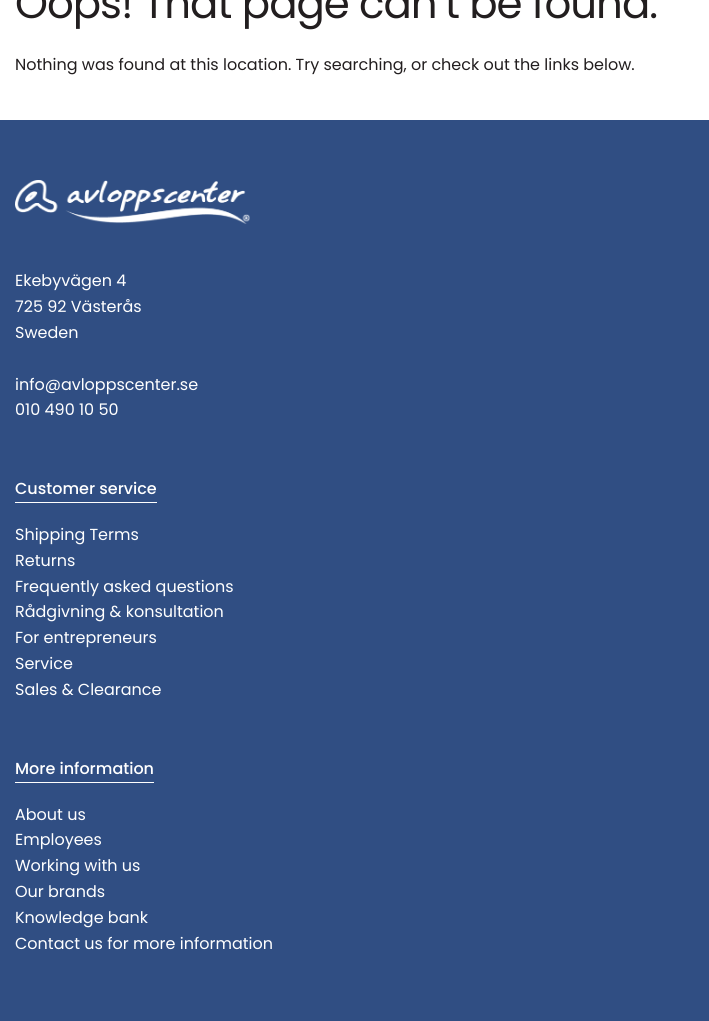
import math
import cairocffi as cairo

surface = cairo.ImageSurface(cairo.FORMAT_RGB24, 709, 1021)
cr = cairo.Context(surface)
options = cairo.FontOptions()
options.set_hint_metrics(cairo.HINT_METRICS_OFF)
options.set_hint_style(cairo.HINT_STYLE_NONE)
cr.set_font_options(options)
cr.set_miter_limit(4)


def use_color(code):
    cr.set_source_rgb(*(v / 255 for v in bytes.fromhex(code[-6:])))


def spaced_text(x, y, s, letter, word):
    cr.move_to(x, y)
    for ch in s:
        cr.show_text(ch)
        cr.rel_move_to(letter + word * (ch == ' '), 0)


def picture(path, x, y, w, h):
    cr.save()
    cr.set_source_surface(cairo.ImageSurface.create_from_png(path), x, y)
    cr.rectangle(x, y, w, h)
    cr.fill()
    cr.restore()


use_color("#ffffff")
cr.paint()
cr.select_font_face("Poppins")
cr.set_font_size(41.9)
use_color("#221e1f")
spaced_text(15, 18, "Oops! That page can’t be found.", -1, 0)
cr.set_font_size(16)
cr.move_to(15, 70)
cr.show_text("Nothing was found at this location. Try searching, or check out the links below.")
use_color("#304e83")
cr.rectangle(0, 120, 709, 901)
cr.fill()
picture("img1.png", 15, 180, 235, 44)
use_color("#ffffff")
cr.move_to(15, 286)
cr.show_text("Ekebyvägen 4")
cr.move_to(15, 312)
cr.show_text("725 92 Västerås")
cr.move_to(15, 338)
cr.show_text("Sweden")
cr.move_to(15, 390)
cr.show_text("info@avloppscenter.se")
cr.move_to(15, 415)
cr.show_text("010 490 10 50")
cr.select_font_face("Poppins Medium")
cr.move_to(15, 494)
cr.show_text("Customer service")
cr.rectangle(15, 502, 142, 1)
cr.fill()
cr.select_font_face("Poppins")
cr.move_to(15, 540)
cr.show_text("Shipping Terms")
cr.move_to(15, 566)
cr.show_text("Returns")
cr.move_to(15, 592)
cr.show_text("Frequently asked questions")
cr.move_to(15, 617)
cr.show_text("Rådgivning & konsultation")
cr.move_to(15, 643)
cr.show_text("For entrepreneurs")
cr.move_to(15, 669)
cr.show_text("Service")
cr.move_to(15, 695)
cr.show_text("Sales & Clearance")
cr.select_font_face("Poppins Medium")
cr.move_to(15, 774)
cr.show_text("More information")
cr.rectangle(15, 782, 139, 1)
cr.fill()
cr.select_font_face("Poppins")
cr.move_to(15, 820)
cr.show_text("About us")
cr.move_to(15, 845)
cr.show_text("Employees")
cr.move_to(15, 871)
cr.show_text("Working with us")
cr.move_to(15, 897)
cr.show_text("Our brands")
cr.move_to(15, 923)
cr.show_text("Knowledge bank")
cr.move_to(15, 949)
cr.show_text("Contact us for more information")
surface.write_to_png("result.png")
